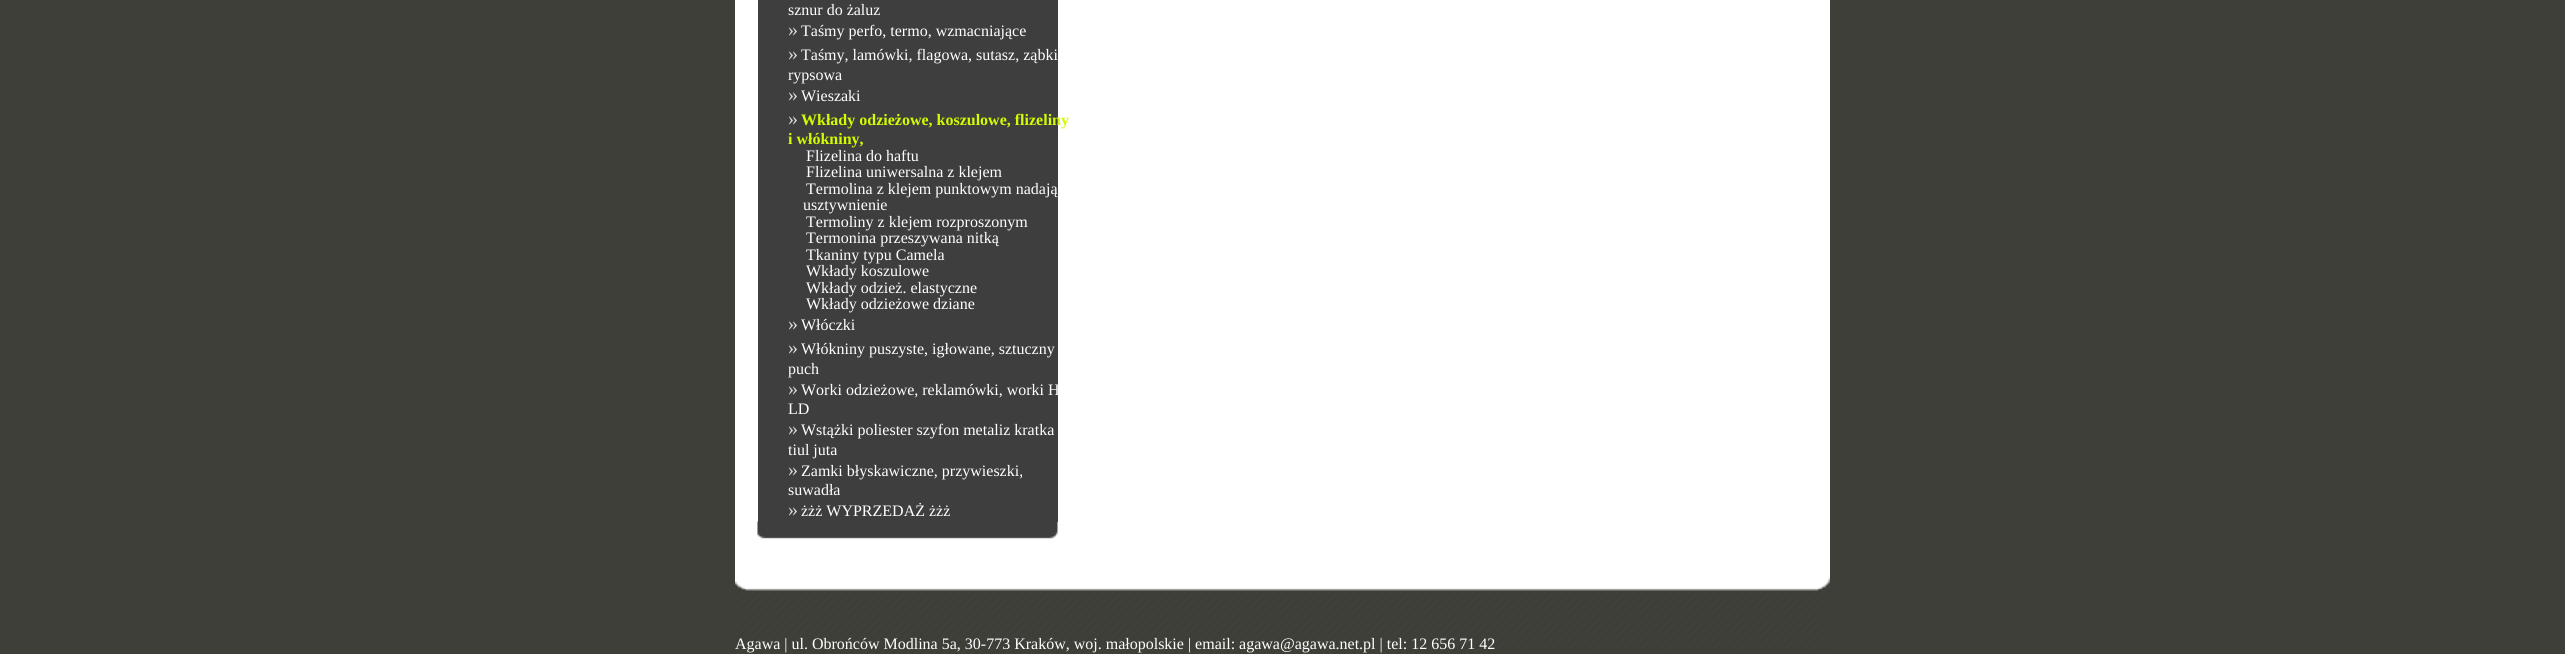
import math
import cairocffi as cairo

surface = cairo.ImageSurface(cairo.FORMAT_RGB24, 2565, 654)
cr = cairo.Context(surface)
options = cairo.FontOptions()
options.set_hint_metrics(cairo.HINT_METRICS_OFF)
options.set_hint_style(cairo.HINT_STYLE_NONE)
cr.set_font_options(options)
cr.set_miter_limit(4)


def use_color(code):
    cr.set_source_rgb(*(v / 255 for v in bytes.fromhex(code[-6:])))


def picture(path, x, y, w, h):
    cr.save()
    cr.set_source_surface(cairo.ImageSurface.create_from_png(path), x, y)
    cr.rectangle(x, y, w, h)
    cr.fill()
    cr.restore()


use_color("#3f3f3a")
cr.paint()
use_color("#ffffff")
cr.rectangle(735, 0, 1095, 577)
cr.fill()
use_color("#3e3e3e")
cr.rectangle(758, 0, 300, 522)
cr.fill()
cr.select_font_face("Liberation Serif")
cr.set_font_size(16)
use_color("#ffffff")
cr.move_to(788, 15)
cr.show_text("sznur do żaluz")
cr.set_font_size(20)
use_color("#d9d9d6")
cr.move_to(788, 36)
cr.show_text("»")
cr.set_font_size(16)
use_color("#ffffff")
cr.move_to(801, 36)
cr.show_text("Taśmy perfo, termo, wzmacniające")
cr.set_font_size(20)
use_color("#d9d9d6")
cr.move_to(788, 60)
cr.show_text("»")
cr.set_font_size(16)
use_color("#ffffff")
cr.move_to(801, 60)
cr.show_text("Taśmy, lamówki, flagowa, sutasz, ząbki")
cr.move_to(788, 80)
cr.show_text("rypsowa")
cr.set_font_size(20)
use_color("#d9d9d6")
cr.move_to(788, 101)
cr.show_text("»")
cr.set_font_size(16)
use_color("#ffffff")
cr.move_to(801, 101)
cr.show_text("Wieszaki")
cr.set_font_size(20)
use_color("#d9d9d6")
cr.move_to(788, 125)
cr.show_text("»")
cr.select_font_face("Liberation Serif", cairo.FONT_SLANT_NORMAL, cairo.FONT_WEIGHT_BOLD)
cr.set_font_size(16)
use_color("#d2fc00")
cr.move_to(801, 125)
cr.show_text("Wkłady odzieżowe, koszulowe, flizeliny")
cr.move_to(788, 144)
cr.show_text("i włókniny,")
cr.select_font_face("Liberation Serif")
use_color("#ffffff")
cr.move_to(806, 161)
cr.show_text("Flizelina do haftu")
cr.move_to(806, 177)
cr.show_text("Flizelina uniwersalna z klejem")
cr.move_to(806, 194)
cr.show_text("Termolina z klejem punktowym nadają")
cr.move_to(803, 210)
cr.show_text("usztywnienie")
cr.move_to(806, 227)
cr.show_text("Termoliny z klejem rozproszonym")
cr.move_to(806, 243)
cr.show_text("Termonina przeszywana nitką")
cr.move_to(806, 260)
cr.show_text("Tkaniny typu Camela")
cr.move_to(806, 276)
cr.show_text("Wkłady koszulowe")
cr.move_to(806, 293)
cr.show_text("Wkłady odzież. elastyczne")
cr.move_to(806, 309)
cr.show_text("Wkłady odzieżowe dziane")
cr.set_font_size(20)
use_color("#d9d9d6")
cr.move_to(788, 330)
cr.show_text("»")
cr.set_font_size(16)
use_color("#ffffff")
cr.move_to(801, 330)
cr.show_text("Włóczki")
cr.set_font_size(20)
use_color("#d9d9d6")
cr.move_to(788, 354)
cr.show_text("»")
cr.set_font_size(16)
use_color("#ffffff")
cr.move_to(801, 354)
cr.show_text("Włókniny puszyste, igłowane, sztuczny")
cr.move_to(788, 374)
cr.show_text("puch")
cr.set_font_size(20)
use_color("#d9d9d6")
cr.move_to(788, 395)
cr.show_text("»")
cr.set_font_size(16)
use_color("#ffffff")
cr.move_to(801, 395)
cr.show_text("Worki odzieżowe, reklamówki, worki H")
cr.move_to(788, 414)
cr.show_text("LD")
cr.set_font_size(20)
use_color("#d9d9d6")
cr.move_to(788, 435)
cr.show_text("»")
cr.set_font_size(16)
use_color("#ffffff")
cr.move_to(801, 435)
cr.show_text("Wstążki poliester szyfon metaliz kratka")
cr.move_to(788, 455)
cr.show_text("tiul juta")
cr.set_font_size(20)
use_color("#d9d9d6")
cr.move_to(788, 476)
cr.show_text("»")
cr.set_font_size(16)
use_color("#ffffff")
cr.move_to(801, 476)
cr.show_text("Zamki błyskawiczne, przywieszki,")
cr.move_to(788, 495)
cr.show_text("suwadła")
cr.set_font_size(20)
use_color("#d9d9d6")
cr.move_to(788, 516)
cr.show_text("»")
cr.set_font_size(16)
use_color("#ffffff")
cr.move_to(801, 516)
cr.show_text("żżż WYPRZEDAŻ żżż")
picture("img1.png", 757, 521, 301, 18)
picture("img2.png", 735, 577, 1095, 77)
cr.move_to(735, 649)
cr.show_text("Agawa | ul. Obrońców Modlina 5a, 30-773 Kraków, woj. małopolskie | email: agawa@agawa.net.pl | tel: 12 656 71 42")
surface.write_to_png("result.png")
